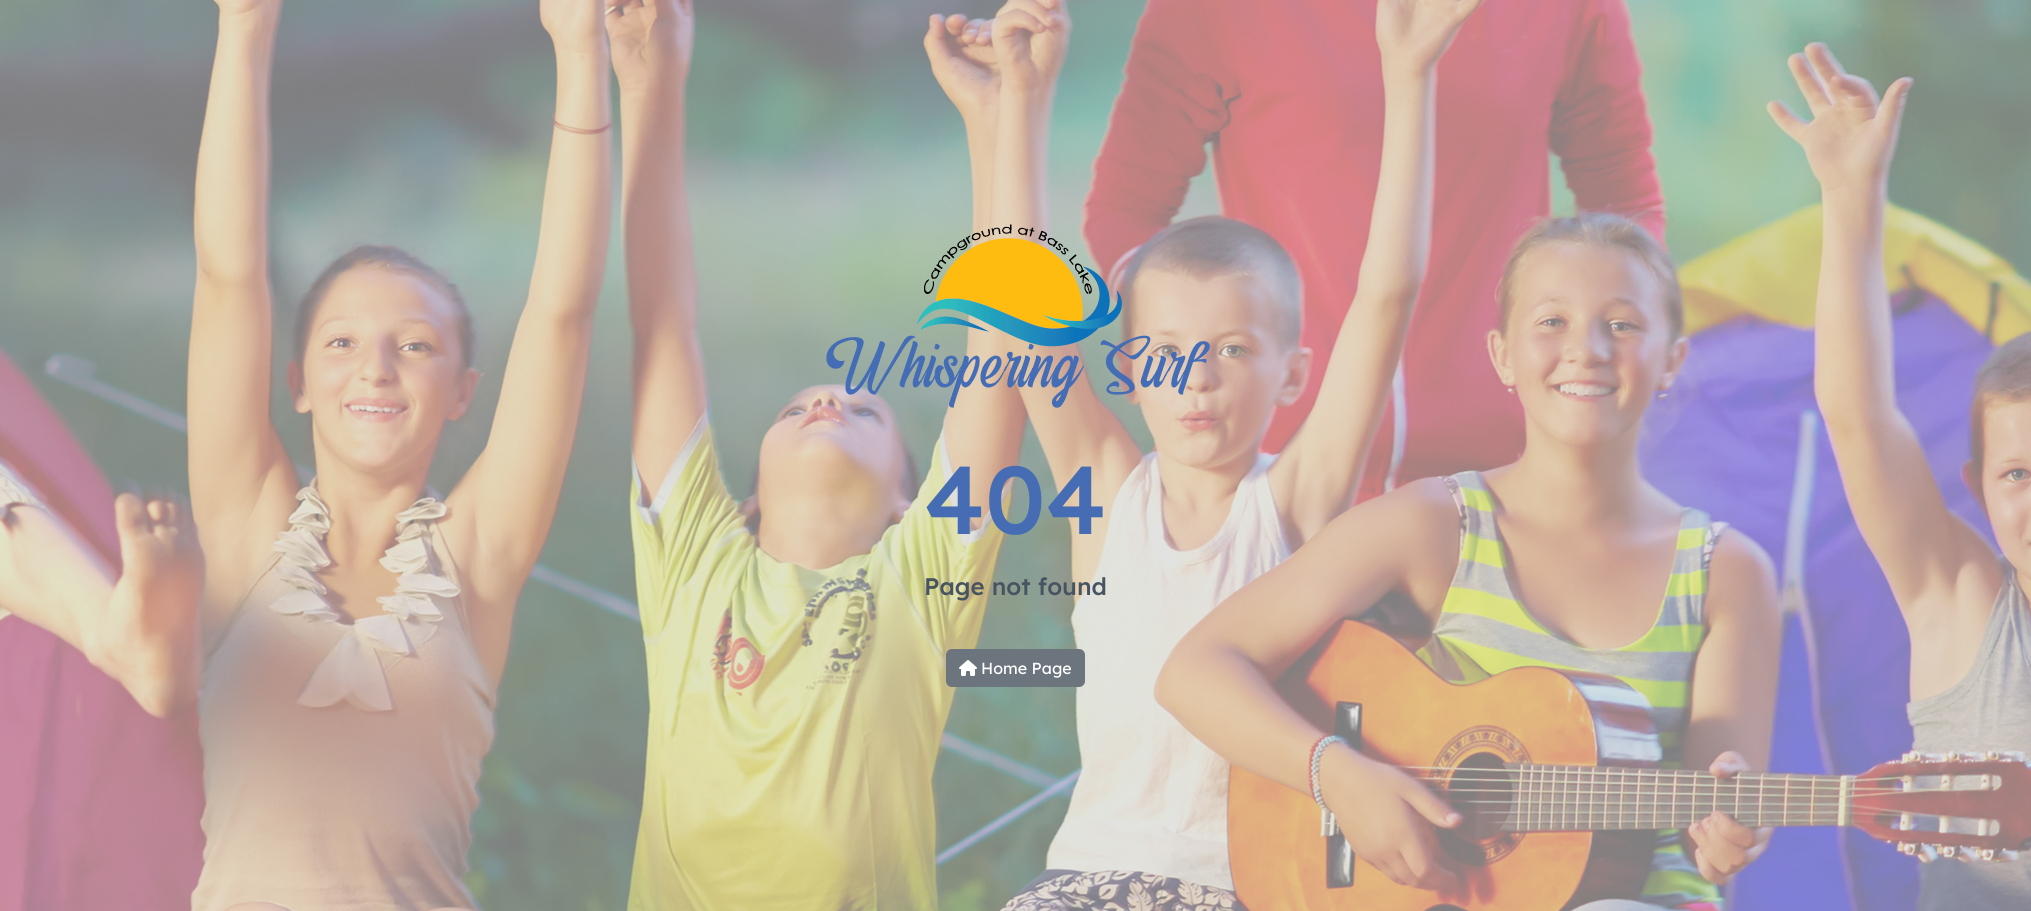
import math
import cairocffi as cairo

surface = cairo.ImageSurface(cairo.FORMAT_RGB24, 2031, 911)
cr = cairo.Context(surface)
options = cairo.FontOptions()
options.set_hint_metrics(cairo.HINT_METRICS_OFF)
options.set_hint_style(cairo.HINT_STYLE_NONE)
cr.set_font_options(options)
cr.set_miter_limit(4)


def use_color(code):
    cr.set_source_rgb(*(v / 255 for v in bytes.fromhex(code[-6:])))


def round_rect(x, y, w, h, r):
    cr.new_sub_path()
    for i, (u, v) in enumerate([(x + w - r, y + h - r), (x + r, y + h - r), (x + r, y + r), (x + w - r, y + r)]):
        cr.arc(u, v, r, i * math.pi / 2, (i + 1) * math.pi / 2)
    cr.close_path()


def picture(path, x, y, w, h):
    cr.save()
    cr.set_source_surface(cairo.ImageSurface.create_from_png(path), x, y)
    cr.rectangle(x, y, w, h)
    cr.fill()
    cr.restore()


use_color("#ffffff")
cr.paint()
picture("img1.png", 0, 0, 2031, 911)
picture("img2.png", 826, 224, 384, 184)
cr.select_font_face("Lexend Medium")
cr.set_font_size(96)
use_color("#466db4")
cr.move_to(924, 534)
cr.show_text("404")
cr.set_font_size(24)
use_color("#475360")
cr.move_to(924, 595)
cr.show_text("Page not found")
use_color("#6c757d")
round_rect(946.5, 649.5, 138, 37, 5.5)
cr.fill_preserve()
cr.set_line_width(1)
cr.stroke()
picture("img3.png", 959, 660, 18, 16)
cr.select_font_face("Lexend")
cr.set_font_size(16)
use_color("#ffffff")
cr.move_to(981, 674)
cr.show_text("Home Page")
surface.write_to_png("result.png")
